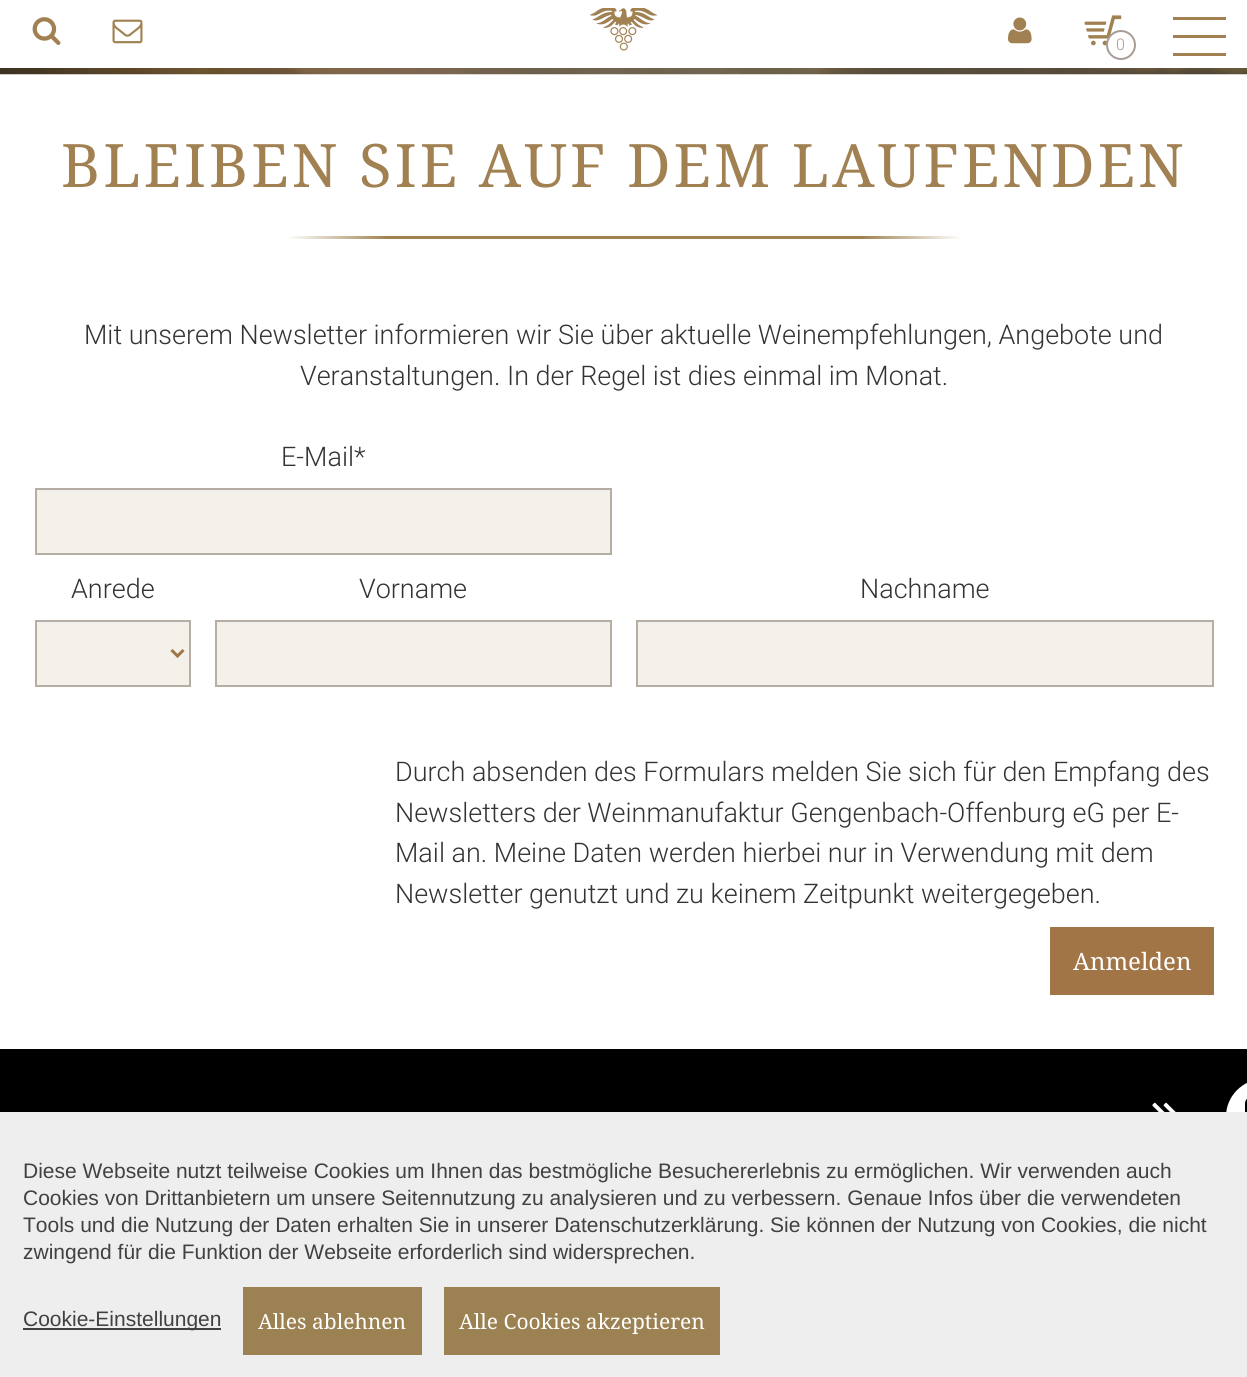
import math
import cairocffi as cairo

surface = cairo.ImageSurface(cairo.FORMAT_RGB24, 1247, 1377)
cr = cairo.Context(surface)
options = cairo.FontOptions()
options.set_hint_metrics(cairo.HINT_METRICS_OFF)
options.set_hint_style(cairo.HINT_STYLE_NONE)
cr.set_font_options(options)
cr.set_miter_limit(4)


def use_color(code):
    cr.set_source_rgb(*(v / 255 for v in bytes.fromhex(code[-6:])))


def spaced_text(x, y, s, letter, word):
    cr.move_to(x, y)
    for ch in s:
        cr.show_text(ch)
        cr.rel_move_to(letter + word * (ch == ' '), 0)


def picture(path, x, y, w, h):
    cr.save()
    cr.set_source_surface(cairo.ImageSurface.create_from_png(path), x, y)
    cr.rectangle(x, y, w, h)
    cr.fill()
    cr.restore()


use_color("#ffffff")
cr.paint()
picture("img1.png", 590, 8, 68, 43)
picture("img2.png", 32, 17, 29, 28)
picture("img3.png", 112, 19, 31, 25)
picture("img4.png", 1008, 17, 24, 27)
picture("img5.png", 1084, 15, 38, 31)
use_color("#ffffff")
cr.arc(1121, 45, 14, 0, 2 * math.pi)
cr.fill_preserve()
use_color("#a79c96")
cr.stroke()
cr.select_font_face("Roboto Light")
cr.set_font_size(16)
cr.move_to(1116, 50)
cr.show_text("0")
use_color("#a18152")
cr.rectangle(1173, 17, 53, 3)
cr.fill()
cr.rectangle(1173, 35, 53, 3)
cr.fill()
cr.rectangle(1173, 53, 53, 3)
cr.fill()
picture("img6.png", 0, 68, 1247, 7)
cr.select_font_face("Noto Serif")
cr.set_font_size(60)
spaced_text(61, 187, "BLEIBEN SIE AUF DEM LAUFENDEN", 3, 0)
gradient = cairo.LinearGradient(287, 237, 962, 237)
gradient.add_color_stop_rgba(0, 1, 1, 1, 1)
gradient.add_color_stop_rgba(0.15, 0.631, 0.506, 0.322, 1)
gradient.add_color_stop_rgba(0.85, 0.631, 0.506, 0.322, 1)
gradient.add_color_stop_rgba(1, 1, 1, 1, 1)
cr.set_source(gradient)
cr.rectangle(287, 236, 675, 3)
cr.fill()
cr.select_font_face("Roboto Light")
cr.set_font_size(27)
use_color("#333333")
cr.move_to(84, 344)
cr.show_text("Mit unserem Newsletter informieren wir Sie über aktuelle Weinempfehlungen, Angebote und")
cr.move_to(300, 385)
cr.show_text("Veranstaltungen. In der Regel ist dies einmal im Monat.")
cr.move_to(281, 466)
cr.show_text("E-Mail*")
use_color("#f4f0ea")
cr.rectangle(37, 491, 573, 62)
cr.fill()
use_color("#eeeeee")
cr.rectangle(36, 490, 575, 1)
cr.fill()
cr.rectangle(36, 489, 575, 65)
use_color("#b6aea2")
cr.stroke()
use_color("#333333")
cr.move_to(71, 598)
cr.show_text("Anrede")
use_color("#f4f0ea")
cr.rectangle(37, 623, 152, 62)
cr.fill()
use_color("#eeeeee")
cr.rectangle(36, 622, 153, 1)
cr.fill()
cr.rectangle(36, 621, 154, 65)
use_color("#b6aea2")
cr.stroke()
cr.new_path()
cr.move_to(171.5, 650)
cr.line_to(177.5, 656)
cr.line_to(183.5, 650)
use_color("#a27546")
cr.set_line_width(3)
cr.stroke()
use_color("#333333")
cr.move_to(359, 598)
cr.show_text("Vorname")
use_color("#f4f0ea")
cr.rectangle(217, 623, 393, 62)
cr.fill()
use_color("#eeeeee")
cr.rectangle(216, 622, 395, 1)
cr.fill()
cr.rectangle(216, 621, 395, 65)
use_color("#b6aea2")
cr.set_line_width(2)
cr.stroke()
use_color("#333333")
cr.move_to(860, 598)
cr.show_text("Nachname")
use_color("#f4f0ea")
cr.rectangle(638, 623, 574, 62)
cr.fill()
use_color("#eeeeee")
cr.rectangle(638, 622, 574, 1)
cr.fill()
cr.rectangle(637, 621, 576, 65)
use_color("#b6aea2")
cr.stroke()
use_color("#333333")
cr.move_to(395, 781)
cr.show_text("Durch absenden des Formulars melden Sie sich für den Empfang des")
cr.move_to(395, 822)
cr.show_text("Newsletters der Weinmanufaktur Gengenbach-Offenburg eG per E-")
cr.move_to(395, 862)
cr.show_text("Mail an. Meine Daten werden hierbei nur in Verwendung mit dem")
cr.move_to(395, 903)
cr.show_text("Newsletter genutzt und zu keinem Zeitpunkt weitergegeben.")
use_color("#a27546")
cr.rectangle(1050, 927, 164, 68)
cr.fill()
cr.select_font_face("Noto Serif")
cr.set_font_size(24)
use_color("#ffffff")
cr.move_to(1073, 970)
cr.show_text("Anmelden")
use_color("#000000")
cr.rectangle(0, 1049, 1247, 63)
cr.fill()
picture("img7.png", 1152, 1102, 24, 10)
use_color("#ffffff")
cr.new_path()
cr.move_to(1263.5, 1079)
cr.line_to(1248, 1079)
cr.line_to(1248, 1154)
cr.line_to(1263.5, 1154)
cr.curve_to(1243, 1154, 1226, 1137, 1226, 1116.5)
cr.curve_to(1226, 1096, 1243, 1079, 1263.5, 1079)
cr.close_path()
cr.fill()
picture("img8.png", 1245, 1098, 2, 14)
use_color("#eeeeee")
cr.rectangle(0, 1112, 1247, 265)
cr.fill()
cr.select_font_face("Liberation Sans")
cr.set_font_size(21)
use_color("#414141")
cr.move_to(23, 1178)
cr.show_text("Diese Webseite nutzt teilweise Cookies um Ihnen das bestmögliche Besuchererlebnis zu ermöglichen. Wir verwenden auch")
cr.move_to(23, 1205)
cr.show_text("Cookies von Drittanbietern um unsere Seitennutzung zu analysieren und zu verbessern. Genaue Infos über die verwendeten")
cr.move_to(23, 1232)
cr.show_text("Tools und die Nutzung der Daten erhalten Sie in unserer Datenschutzerklärung. Sie können der Nutzung von Cookies, die nicht")
cr.move_to(23, 1259)
cr.show_text("zwingend für die Funktion der Webseite erforderlich sind widersprechen.")
cr.rectangle(23, 1328, 198, 2)
cr.fill()
cr.move_to(23, 1326)
cr.show_text("Cookie-Einstellungen")
use_color("#9c8152")
cr.rectangle(243, 1287, 179, 68)
cr.fill()
cr.select_font_face("Noto Serif")
use_color("#ffffff")
cr.move_to(258, 1329)
cr.show_text("Alles ablehnen")
use_color("#9c8152")
cr.rectangle(444, 1287, 276, 68)
cr.fill()
use_color("#ffffff")
cr.move_to(459, 1329)
cr.show_text("Alle Cookies akzeptieren")
surface.write_to_png("result.png")
